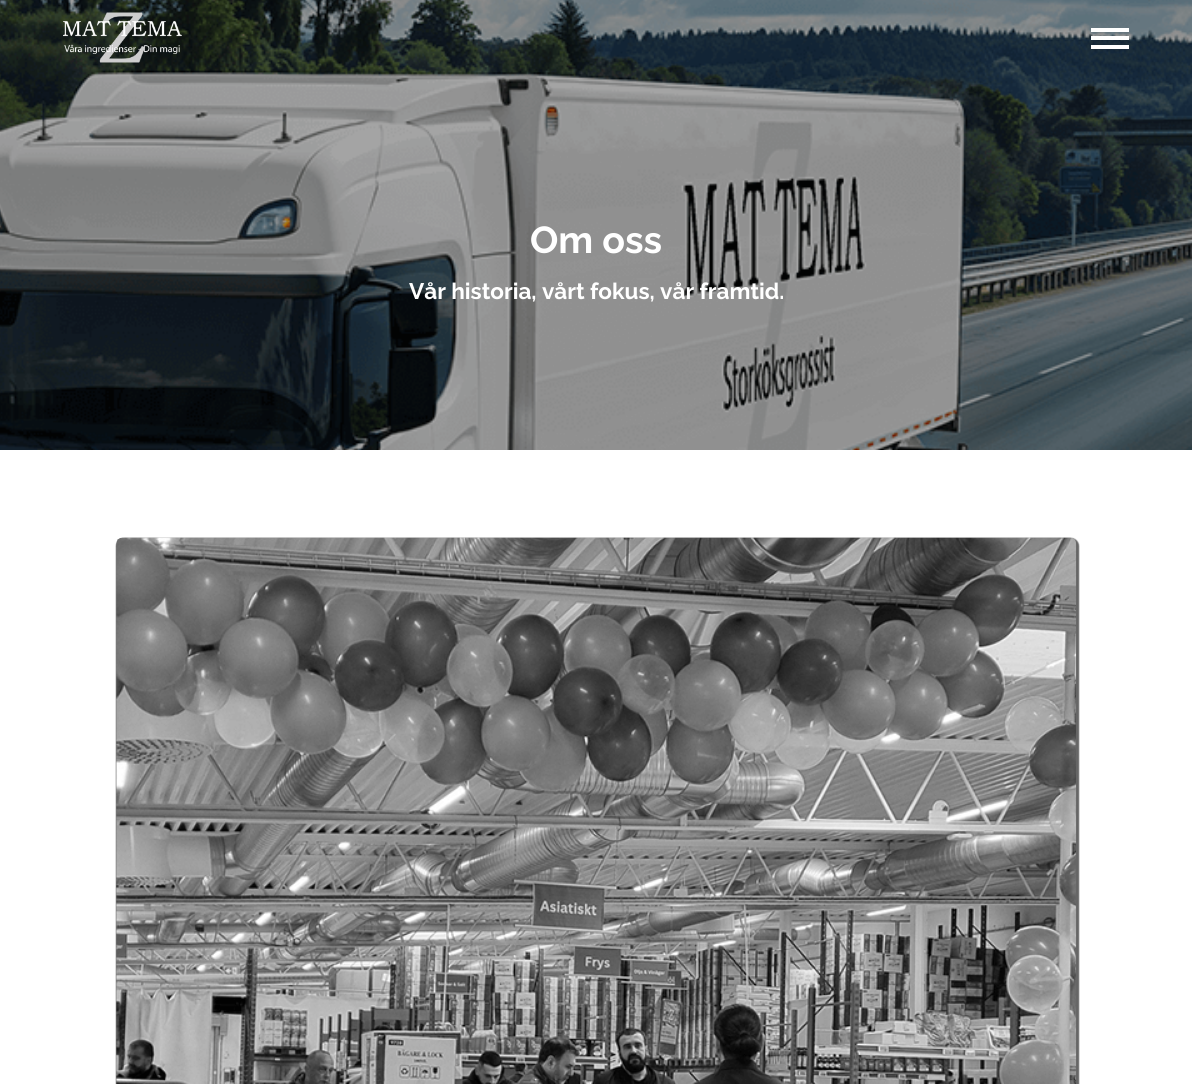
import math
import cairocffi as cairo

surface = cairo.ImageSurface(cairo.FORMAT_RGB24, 1192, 1084)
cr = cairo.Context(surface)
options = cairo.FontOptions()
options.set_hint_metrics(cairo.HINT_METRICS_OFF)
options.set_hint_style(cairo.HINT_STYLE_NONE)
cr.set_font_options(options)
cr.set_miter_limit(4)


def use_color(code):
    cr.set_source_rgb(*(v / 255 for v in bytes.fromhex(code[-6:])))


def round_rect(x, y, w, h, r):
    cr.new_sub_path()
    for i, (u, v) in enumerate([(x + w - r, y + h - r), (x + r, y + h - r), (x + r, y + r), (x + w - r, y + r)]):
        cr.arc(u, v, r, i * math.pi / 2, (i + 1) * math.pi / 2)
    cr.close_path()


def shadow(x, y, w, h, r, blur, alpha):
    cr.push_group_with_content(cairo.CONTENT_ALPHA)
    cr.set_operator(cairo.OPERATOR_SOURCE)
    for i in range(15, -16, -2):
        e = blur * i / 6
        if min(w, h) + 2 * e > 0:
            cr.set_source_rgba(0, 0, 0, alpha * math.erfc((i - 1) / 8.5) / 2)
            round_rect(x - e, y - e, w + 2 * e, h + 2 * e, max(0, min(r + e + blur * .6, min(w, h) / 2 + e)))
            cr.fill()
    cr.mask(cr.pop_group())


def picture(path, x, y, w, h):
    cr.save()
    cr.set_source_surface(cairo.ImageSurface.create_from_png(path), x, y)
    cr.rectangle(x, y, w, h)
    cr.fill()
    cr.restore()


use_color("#ffffff")
cr.paint()
picture("img2.png", 0, 0, 1192, 450)
picture("img1.png", 63, 12, 119, 51)
use_color("#ffffff")
cr.rectangle(1091, 28, 38, 4)
cr.fill()
cr.rectangle(1091, 36, 38, 4)
cr.fill()
cr.rectangle(1091, 45, 38, 4)
cr.fill()
cr.select_font_face("Raleway", cairo.FONT_SLANT_NORMAL, cairo.FONT_WEIGHT_BOLD)
cr.set_font_size(37.5)
cr.move_to(530, 253)
cr.show_text("Om oss")
cr.set_font_size(22.5)
cr.move_to(409, 299)
cr.show_text("Vår historia, vårt fokus, vår framtid.")
use_color("#000000")
shadow(116, 538, 963, 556, 8, 0.5, 0.6)
picture("img3.png", 116, 537, 961, 547)
surface.write_to_png("result.png")
